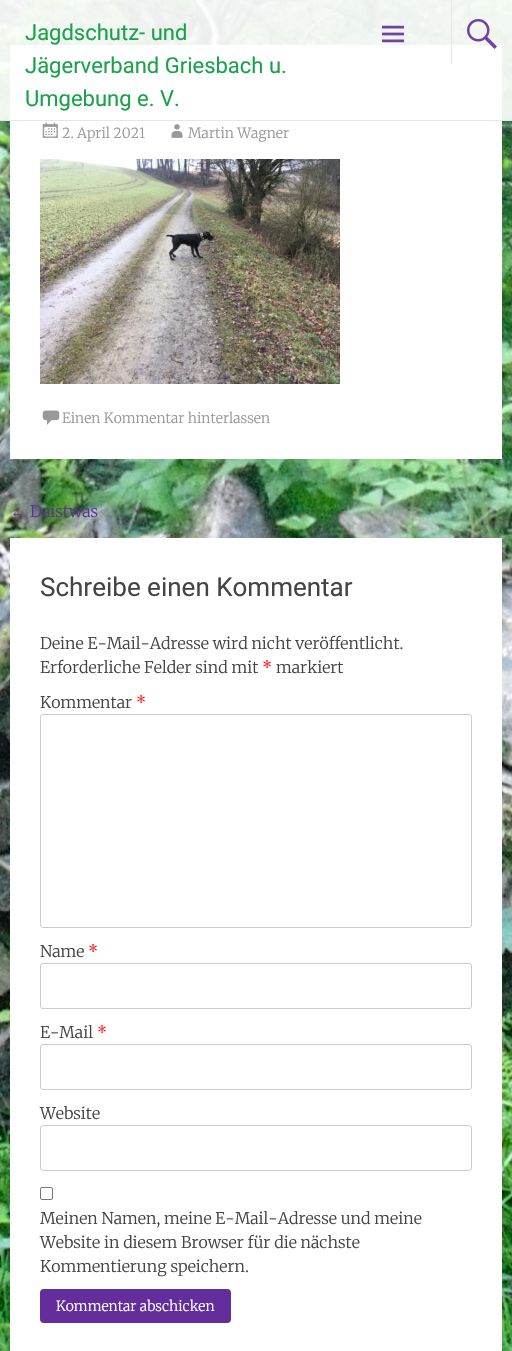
#include "include/core/SkBlurTypes.h"
#include "include/core/SkCanvas.h"
#include "include/core/SkData.h"
#include "include/core/SkFont.h"
#include "include/core/SkFontMgr.h"
#include "include/core/SkImage.h"
#include "include/core/SkMaskFilter.h"
#include "include/core/SkPaint.h"
#include "include/core/SkPathBuilder.h"
#include "include/core/SkTextBlob.h"
#include "include/effects/SkDashPathEffect.h"
#include "include/effects/SkGradientShader.h"
#include "include/utils/SkParsePath.h"

extern sk_sp<SkFontMgr> fontMgr;

void draw(SkCanvas* canvas) {
  SkPaint p;
  p.setAntiAlias(true);
  canvas->clear(SK_ColorWHITE);
  canvas->drawImageRect(SkImages::DeferredFromEncodedData(SkData::MakeFromFileName("images/3.png")), SkRect::MakeLTRB(0, 0, 512, 1351), SkSamplingOptions());
  p.setColor(SK_ColorWHITE);
  canvas->drawRect(SkRect::MakeLTRB(10, 45, 502, 459), p);
  p.setColor(SkColorSetARGB(230, 255, 255, 255));
  canvas->drawRect(SkRect::MakeLTRB(0, 0, 512, 121), p);
  p.setColor(SkColorSetARGB(230, 225, 228, 230));
  canvas->drawRect(SkRect::MakeLTRB(0, 120, 512, 121), p);
  canvas->drawImageRect(SkImages::DeferredFromEncodedData(SkData::MakeFromFileName("images/1.png")), SkRect::MakeLTRB(382, 25, 404, 43), SkSamplingOptions());
  canvas->drawRect(SkRect::MakeLTRB(451, 0, 452, 64), p);
  canvas->drawImageRect(SkImages::DeferredFromEncodedData(SkData::MakeFromFileName("images/2.png")), SkRect::MakeLTRB(467, 19, 497, 49), SkSamplingOptions());
  canvas->drawImageRect(SkImages::DeferredFromEncodedData(SkData::MakeFromFileName("images/4.png")), SkRect::MakeLTRB(42, 122, 58, 138), SkSamplingOptions());
  canvas->drawImageRect(SkImages::DeferredFromEncodedData(SkData::MakeFromFileName("images/5.png")), SkRect::MakeLTRB(171, 124, 183, 138), SkSamplingOptions());
  canvas->drawImageRect(SkImages::DeferredFromEncodedData(SkData::MakeFromFileName("images/6.png")), SkRect::MakeLTRB(40, 159, 340, 384), SkSamplingOptions());
  canvas->drawImageRect(SkImages::DeferredFromEncodedData(SkData::MakeFromFileName("images/7.png")), SkRect::MakeLTRB(42, 410, 60, 425), SkSamplingOptions());
  p.setColor(SK_ColorWHITE);
  canvas->drawRect(SkRect::MakeLTRB(10, 538, 502, 1351), p);
  p.setStyle(SkPaint::kStroke_Style);
  p.setStrokeWidth(1);
  p.setColor(SkColorSetRGB(204, 204, 204));
  canvas->drawRoundRect(SkRect::MakeLTRB(40.5f, 714.5f, 471.5f, 927.5f), 2.5f, 2.5f, p);
  canvas->drawRoundRect(SkRect::MakeLTRB(40.5f, 963.5f, 471.5f, 1008.5f), 2.5f, 2.5f, p);
  canvas->drawRoundRect(SkRect::MakeLTRB(40.5f, 1044.5f, 471.5f, 1089.5f), 2.5f, 2.5f, p);
  canvas->drawRoundRect(SkRect::MakeLTRB(40.5f, 1125.5f, 471.5f, 1170.5f), 2.5f, 2.5f, p);
  p.setColor(SkColorSetRGB(118, 118, 118));
  canvas->drawRoundRect(SkRect::MakeLTRB(40.5f, 1187.5f, 52.5f, 1199.5f), 1.5f, 1.5f, p);
  p.setStyle(SkPaint::kFill_Style);
  p.setColor(SkColorSetRGB(99, 46, 155));
  canvas->drawRoundRect(SkRect::MakeLTRB(40, 1289, 231, 1323), 4, 4, p);
  SkFont font1(fontMgr->matchFamilyStyle("Roboto", SkFontStyle::Normal()), 22);
  font1.setSubpixel(true);
  p.setColor(SkColorSetRGB(24, 162, 74));
  canvas->drawString("Jagdschutz- und", 25, 40, font1, p);
  canvas->drawString("Jägerverband Griesbach u.", 25, 73, font1, p);
  canvas->drawString("Umgebung e. V.", 25, 106, font1, p);
  SkFont font2(fontMgr->matchFamilyStyle("Merriweather", SkFontStyle(300, SkFontStyle::kNormal_Width, SkFontStyle::kUpright_Slant)), 14);
  font2.setSubpixel(true);
  p.setColor(SkColorSetRGB(153, 153, 153));
  canvas->drawString("2. April 2021", 62, 138, font2, p);
  canvas->drawString("Martin Wagner", 188, 138, font2, p);
  canvas->drawString("Einen Kommentar hinterlassen", 62, 423, font2, p);
  SkFont font3(fontMgr->matchFamilyStyle("Liberation Serif", SkFontStyle::Normal()), 16);
  font3.setSubpixel(true);
  p.setColor(SkColorSetRGB(99, 46, 155));
  canvas->drawString("←", 10, 517, font3, p);
  SkFont font4(fontMgr->matchFamilyStyle("Merriweather", SkFontStyle(300, SkFontStyle::kNormal_Width, SkFontStyle::kUpright_Slant)), 16);
  font4.setSubpixel(true);
  canvas->drawString("Daistwas", 30, 517, font4, p);
  SkFont font5(fontMgr->matchFamilyStyle("Roboto", SkFontStyle::Normal()), 26);
  font5.setSubpixel(true);
  p.setColor(SkColorSetRGB(68, 68, 68));
  canvas->drawString("Schreibe einen Kommentar", 40, 596, font5, p);
  canvas->drawString("Deine E-Mail-Adresse wird nicht veröffentlicht.", 40, 649, font4, p);
  canvas->drawString("Erforderliche Felder sind mit", 40, 673, font4, p);
  p.setColor(SkColorSetRGB(255, 0, 0));
  canvas->drawString("*", 262, 673, font4, p);
  p.setColor(SkColorSetRGB(68, 68, 68));
  canvas->drawString("markiert", 276, 673, font4, p);
  canvas->drawString("Kommentar", 40, 708, font4, p);
  p.setColor(SkColorSetRGB(255, 0, 0));
  canvas->drawString("*", 136, 708, font4, p);
  p.setColor(SkColorSetRGB(68, 68, 68));
  canvas->drawString("Name", 40, 957, font4, p);
  p.setColor(SkColorSetRGB(255, 0, 0));
  canvas->drawString("*", 88, 957, font4, p);
  p.setColor(SkColorSetRGB(68, 68, 68));
  canvas->drawString("E-Mail", 40, 1038, font4, p);
  p.setColor(SkColorSetRGB(255, 0, 0));
  canvas->drawString("*", 97, 1038, font4, p);
  p.setColor(SkColorSetRGB(68, 68, 68));
  canvas->drawString("Website", 40, 1119, font4, p);
  canvas->drawString("Meinen Namen, meine E-Mail-Adresse und meine", 40, 1224, font4, p);
  canvas->drawString("Website in diesem Browser für die nächste", 40, 1248, font4, p);
  canvas->drawString("Kommentierung speichern.", 40, 1272, font4, p);
  p.setColor(SK_ColorWHITE);
  canvas->drawString("Kommentar abschicken", 56, 1311, font2, p);
}
